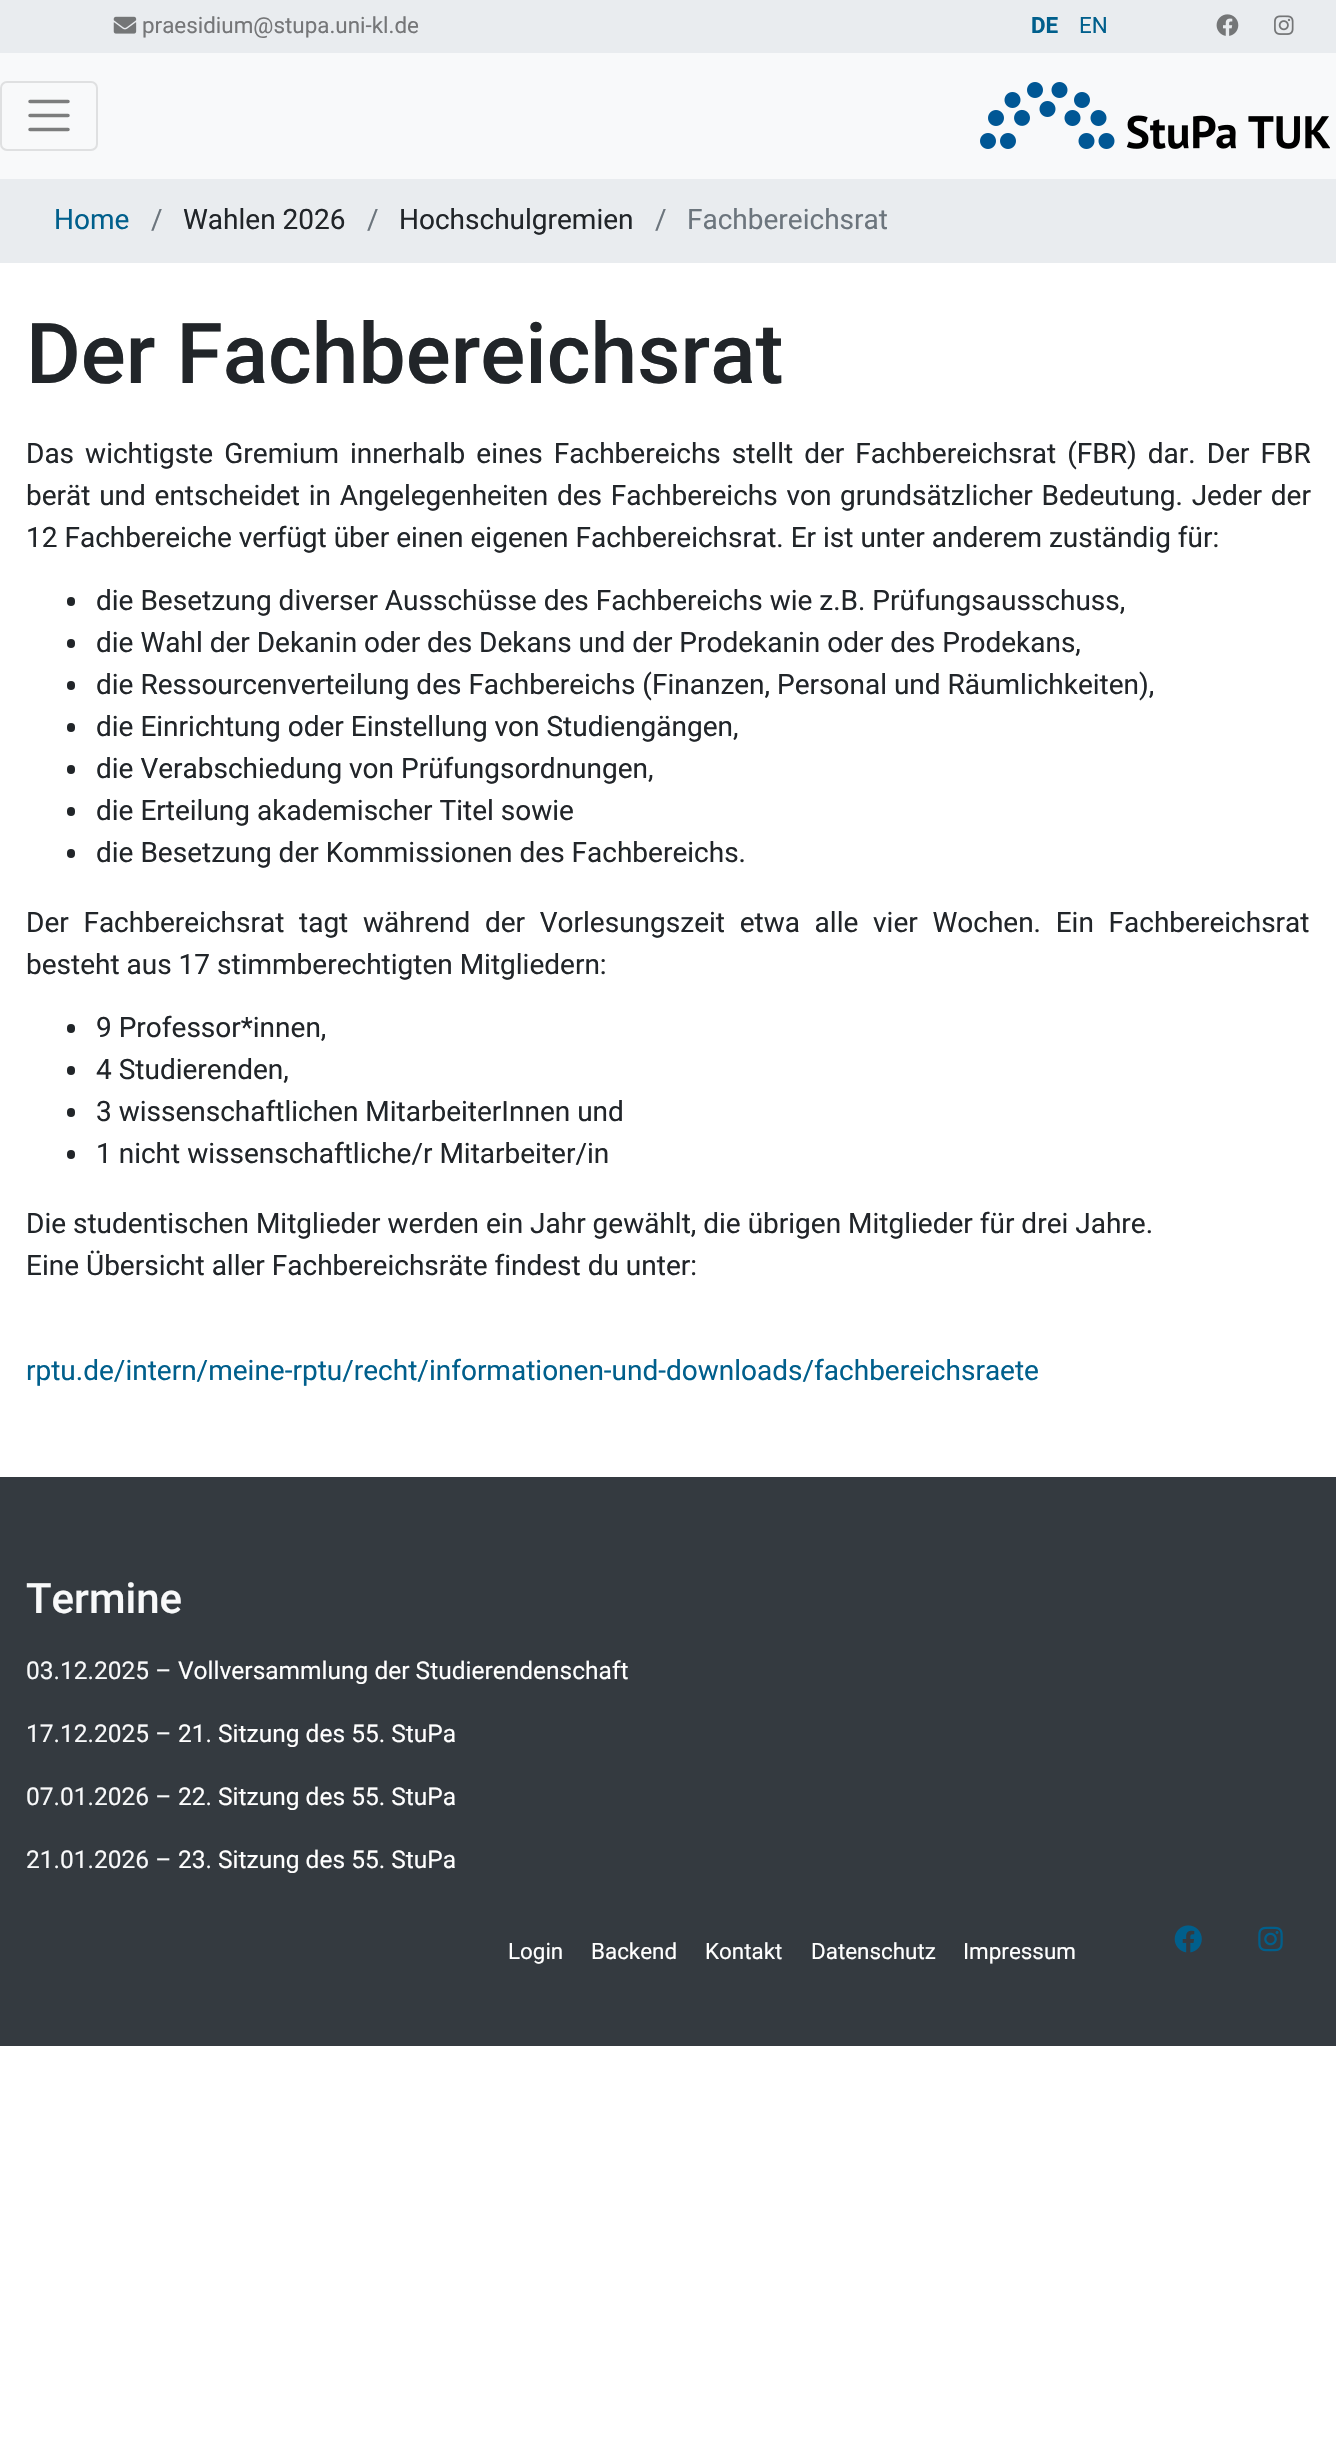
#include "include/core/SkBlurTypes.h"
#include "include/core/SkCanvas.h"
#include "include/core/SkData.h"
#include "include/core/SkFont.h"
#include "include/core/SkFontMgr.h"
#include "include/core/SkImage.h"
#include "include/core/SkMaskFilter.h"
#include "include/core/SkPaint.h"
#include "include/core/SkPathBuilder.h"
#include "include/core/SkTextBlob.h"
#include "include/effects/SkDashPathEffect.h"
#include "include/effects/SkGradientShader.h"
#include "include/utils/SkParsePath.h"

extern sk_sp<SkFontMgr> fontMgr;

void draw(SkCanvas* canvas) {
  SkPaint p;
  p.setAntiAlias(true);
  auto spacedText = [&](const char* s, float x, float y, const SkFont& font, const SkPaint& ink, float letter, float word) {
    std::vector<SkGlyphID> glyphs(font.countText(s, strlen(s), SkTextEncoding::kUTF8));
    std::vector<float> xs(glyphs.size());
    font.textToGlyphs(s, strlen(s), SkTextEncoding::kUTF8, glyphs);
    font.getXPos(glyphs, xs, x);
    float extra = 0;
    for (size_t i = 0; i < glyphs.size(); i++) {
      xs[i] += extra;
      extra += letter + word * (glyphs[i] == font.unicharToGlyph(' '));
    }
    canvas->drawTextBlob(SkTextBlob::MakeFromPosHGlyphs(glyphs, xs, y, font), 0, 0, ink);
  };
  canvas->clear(SK_ColorWHITE);
  p.setColor(SkColorSetRGB(248, 249, 250));
  canvas->drawRect(SkRect::MakeLTRB(0, 53, 1336, 179), p);
  p.setColor(SkColorSetRGB(233, 236, 239));
  canvas->drawRect(SkRect::MakeLTRB(0, 0, 1336, 53), p);
  canvas->drawImageRect(SkImages::DeferredFromEncodedData(SkData::MakeFromFileName("images/1.png")), SkRect::MakeLTRB(113, 16, 137, 34), SkSamplingOptions());
  canvas->drawImageRect(SkImages::DeferredFromEncodedData(SkData::MakeFromFileName("images/2.png")), SkRect::MakeLTRB(1216, 14, 1239, 36), SkSamplingOptions());
  canvas->drawImageRect(SkImages::DeferredFromEncodedData(SkData::MakeFromFileName("images/3.png")), SkRect::MakeLTRB(1274, 15, 1294, 35), SkSamplingOptions());
  p.setStyle(SkPaint::kStroke_Style);
  p.setStrokeWidth(2);
  p.setColor(SkColorSetRGB(223, 224, 225));
  canvas->drawRoundRect(SkRect::MakeLTRB(1, 82, 97, 150), 6, 6, p);
  p.setStrokeWidth(3.5f);
  p.setStrokeCap(SkPaint::kRound_Cap);
  p.setColor(SkColorSetRGB(124, 125, 125));
  canvas->drawPath(SkPathBuilder().moveTo(30, 101.5f).lineTo(68, 101.5f).moveTo(30, 115.5f).lineTo(68, 115.5f).moveTo(30, 129.5f).lineTo(68, 129.5f).detach(), p);
  canvas->drawImageRect(SkImages::DeferredFromEncodedData(SkData::MakeFromFileName("images/4.png")), SkRect::MakeLTRB(980, 82, 1330, 149), SkSamplingOptions());
  p.setStyle(SkPaint::kFill_Style);
  p.setColor(SkColorSetRGB(233, 236, 239));
  canvas->drawRect(SkRect::MakeLTRB(0, 179, 1336, 263), p);
  p.setColor(SkColorSetRGB(33, 37, 41));
  canvas->drawRoundRect(SkRect::MakeLTRB(67, 597, 75, 606), 4, 4, p);
  canvas->drawRoundRect(SkRect::MakeLTRB(67, 639, 75, 648), 4, 4, p);
  canvas->drawRoundRect(SkRect::MakeLTRB(67, 681, 75, 690), 4, 4, p);
  canvas->drawRoundRect(SkRect::MakeLTRB(67, 723, 75, 732), 4, 4, p);
  canvas->drawRoundRect(SkRect::MakeLTRB(67, 765, 75, 774), 4, 4, p);
  canvas->drawRoundRect(SkRect::MakeLTRB(67, 807, 75, 816), 4, 4, p);
  canvas->drawRoundRect(SkRect::MakeLTRB(67, 849, 75, 858), 4, 4, p);
  canvas->drawRoundRect(SkRect::MakeLTRB(67, 1024, 75, 1033), 4, 4, p);
  canvas->drawRoundRect(SkRect::MakeLTRB(67, 1066, 75, 1075), 4, 4, p);
  canvas->drawRoundRect(SkRect::MakeLTRB(67, 1108, 75, 1117), 4, 4, p);
  canvas->drawRoundRect(SkRect::MakeLTRB(67, 1150, 75, 1159), 4, 4, p);
  p.setColor(SkColorSetRGB(52, 58, 64));
  canvas->drawRect(SkRect::MakeLTRB(0, 1477, 1336, 2046), p);
  canvas->drawImageRect(SkImages::DeferredFromEncodedData(SkData::MakeFromFileName("images/5.png")), SkRect::MakeLTRB(1174, 1925, 1202, 1953), SkSamplingOptions());
  canvas->drawImageRect(SkImages::DeferredFromEncodedData(SkData::MakeFromFileName("images/6.png")), SkRect::MakeLTRB(1258, 1926, 1283, 1952), SkSamplingOptions());
  SkFont font1(fontMgr->matchFamilyStyle("Roboto", SkFontStyle::Normal()), 22.4f);
  font1.setSubpixel(true);
  p.setColor(SkColorSetRGB(117, 118, 120));
  canvas->drawString("praesidium@stupa.uni-kl.de", 142, 33, font1, p);
  SkFont font2(fontMgr->matchFamilyStyle("Roboto", SkFontStyle::Bold()), 22.4f);
  font2.setSubpixel(true);
  p.setColor(SkColorSetRGB(0, 95, 140));
  canvas->drawString("DE", 1031, 33, font2, p);
  canvas->drawString("EN", 1079, 33, font1, p);
  SkFont font3(fontMgr->matchFamilyStyle("Roboto", SkFontStyle::Normal()), 28);
  font3.setSubpixel(true);
  canvas->drawString("Home", 54, 229, font3, p);
  p.setColor(SkColorSetRGB(108, 117, 125));
  canvas->drawString("/", 151, 229, font3, p);
  p.setColor(SkColorSetRGB(33, 37, 41));
  canvas->drawString("Wahlen 2026", 183, 229, font3, p);
  p.setColor(SkColorSetRGB(108, 117, 125));
  canvas->drawString("/", 367, 229, font3, p);
  p.setColor(SkColorSetRGB(33, 37, 41));
  canvas->drawString("Hochschulgremien", 399, 229, font3, p);
  p.setColor(SkColorSetRGB(108, 117, 125));
  canvas->drawString("/", 655, 229, font3, p);
  canvas->drawString("Fachbereichsrat", 687, 229, font3, p);
  SkFont font4(fontMgr->matchFamilyStyle("Roboto", SkFontStyle(500, SkFontStyle::kNormal_Width, SkFontStyle::kUpright_Slant)), 84);
  font4.setSubpixel(true);
  p.setColor(SkColorSetRGB(33, 37, 41));
  canvas->drawString("Der Fachbereichsrat", 26, 383, font4, p);
  spacedText("Das wichtigste Gremium innerhalb eines Fachbereichs stellt der Fachbereichsrat (FBR) dar. Der FBR", 26, 463, font3, p, 0, 4.1f);
  spacedText("berät und entscheidet in Angelegenheiten des Fachbereichs von grundsätzlicher Bedeutung. Jeder der", 26, 505, font3, p, 0, 1.75f);
  canvas->drawString("12 Fachbereiche verfügt über einen eigenen Fachbereichsrat. Er ist unter anderem zuständig für:", 26, 547, font3, p);
  canvas->drawString("die Besetzung diverser Ausschüsse des Fachbereichs wie z.B. Prüfungsausschuss,", 96, 610, font3, p);
  canvas->drawString("die Wahl der Dekanin oder des Dekans und der Prodekanin oder des Prodekans,", 96, 652, font3, p);
  canvas->drawString("die Ressourcenverteilung des Fachbereichs (Finanzen, Personal und Räumlichkeiten),", 96, 694, font3, p);
  canvas->drawString("die Einrichtung oder Einstellung von Studiengängen,", 96, 736, font3, p);
  canvas->drawString("die Verabschiedung von Prüfungsordnungen,", 96, 778, font3, p);
  canvas->drawString("die Erteilung akademischer Titel sowie", 96, 820, font3, p);
  canvas->drawString("die Besetzung der Kommissionen des Fachbereichs.", 96, 862, font3, p);
  spacedText("Der Fachbereichsrat tagt während der Vorlesungszeit etwa alle vier Wochen. Ein Fachbereichsrat", 26, 932, font3, p, 0, 7.75f);
  canvas->drawString("besteht aus 17 stimmberechtigten Mitgliedern:", 26, 974, font3, p);
  canvas->drawString("9 Professor*innen,", 96, 1037, font3, p);
  canvas->drawString("4 Studierenden,", 96, 1079, font3, p);
  canvas->drawString("3 wissenschaftlichen MitarbeiterInnen und", 96, 1121, font3, p);
  canvas->drawString("1 nicht wissenschaftliche/r Mitarbeiter/in", 96, 1163, font3, p);
  canvas->drawString("Die studentischen Mitglieder werden ein Jahr gewählt, die übrigen Mitglieder für drei Jahre.", 26, 1233, font3, p);
  canvas->drawString("Eine Übersicht aller Fachbereichsräte findest du unter:", 26, 1275, font3, p);
  p.setColor(SkColorSetRGB(0, 95, 140));
  canvas->drawString("rptu.de/intern/meine-rptu/recht/informationen-und-downloads/fachbereichsraete", 26, 1380, font3, p);
  SkFont font5(fontMgr->matchFamilyStyle("Roboto", SkFontStyle(500, SkFontStyle::kNormal_Width, SkFontStyle::kUpright_Slant)), 42);
  font5.setSubpixel(true);
  p.setColor(SkColorSetRGB(248, 249, 250));
  canvas->drawString("Termine", 26, 1613, font5, p);
  SkFont font6(fontMgr->matchFamilyStyle("Roboto", SkFontStyle::Normal()), 24.5f);
  font6.setSubpixel(true);
  canvas->drawString("03.12.2025 –", 26, 1679, font6, p);
  p.setColor(SK_ColorWHITE);
  canvas->drawString("Vollversammlung der Studierendenschaft", 178, 1679, font6, p);
  p.setColor(SkColorSetRGB(248, 249, 250));
  canvas->drawString("17.12.2025 –", 26, 1742, font6, p);
  p.setColor(SK_ColorWHITE);
  canvas->drawString("21. Sitzung des 55. StuPa", 178, 1742, font6, p);
  p.setColor(SkColorSetRGB(248, 249, 250));
  canvas->drawString("07.01.2026 –", 26, 1805, font6, p);
  p.setColor(SK_ColorWHITE);
  canvas->drawString("22. Sitzung des 55. StuPa", 178, 1805, font6, p);
  p.setColor(SkColorSetRGB(248, 249, 250));
  canvas->drawString("21.01.2026 –", 26, 1868, font6, p);
  p.setColor(SK_ColorWHITE);
  canvas->drawString("23. Sitzung des 55. StuPa", 178, 1868, font6, p);
  canvas->drawString("Login", 508, 1959, font1, p);
  canvas->drawString("Backend", 591, 1959, font1, p);
  canvas->drawString("Kontakt", 705, 1959, font1, p);
  canvas->drawString("Datenschutz", 811, 1959, font1, p);
  canvas->drawString("Impressum", 963, 1959, font1, p);
}
